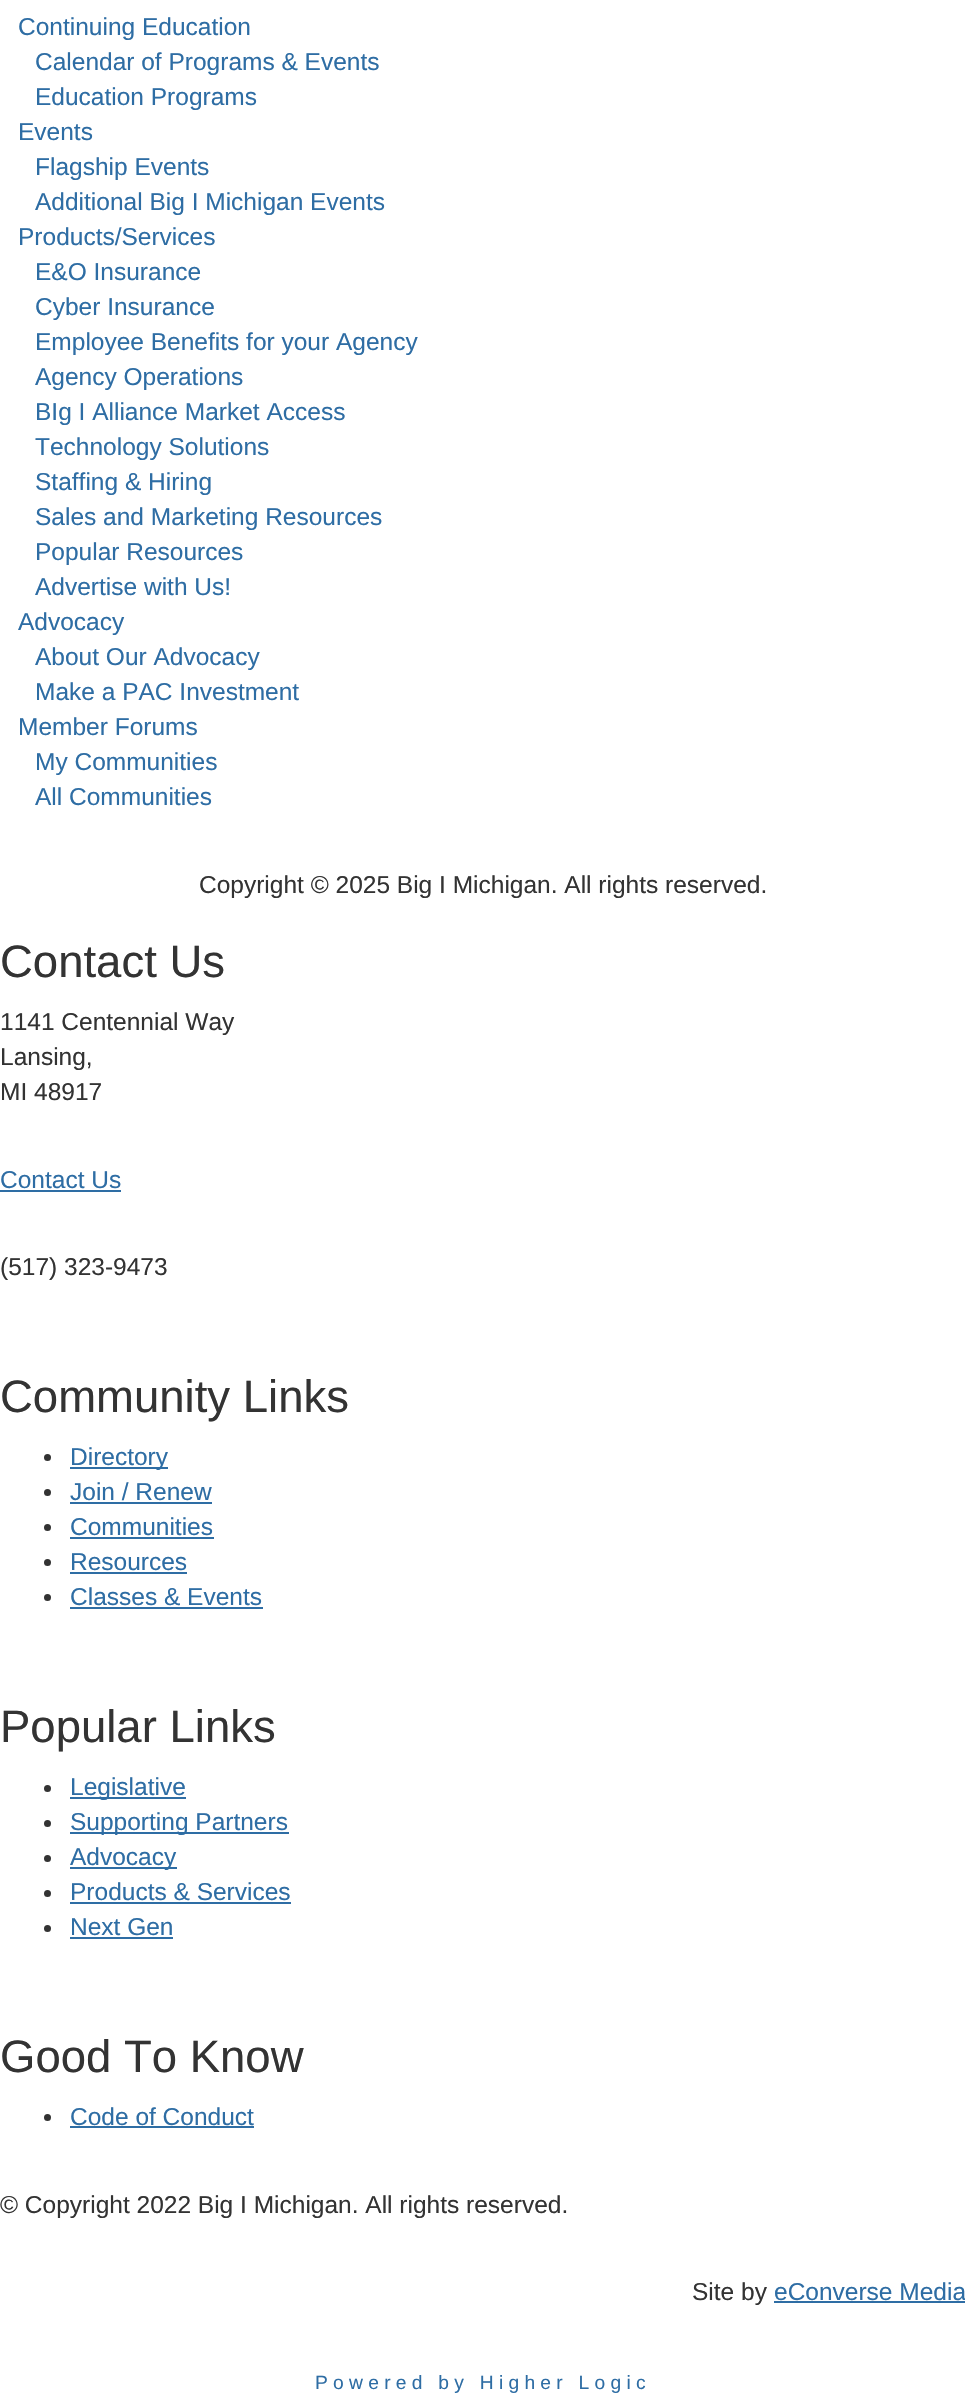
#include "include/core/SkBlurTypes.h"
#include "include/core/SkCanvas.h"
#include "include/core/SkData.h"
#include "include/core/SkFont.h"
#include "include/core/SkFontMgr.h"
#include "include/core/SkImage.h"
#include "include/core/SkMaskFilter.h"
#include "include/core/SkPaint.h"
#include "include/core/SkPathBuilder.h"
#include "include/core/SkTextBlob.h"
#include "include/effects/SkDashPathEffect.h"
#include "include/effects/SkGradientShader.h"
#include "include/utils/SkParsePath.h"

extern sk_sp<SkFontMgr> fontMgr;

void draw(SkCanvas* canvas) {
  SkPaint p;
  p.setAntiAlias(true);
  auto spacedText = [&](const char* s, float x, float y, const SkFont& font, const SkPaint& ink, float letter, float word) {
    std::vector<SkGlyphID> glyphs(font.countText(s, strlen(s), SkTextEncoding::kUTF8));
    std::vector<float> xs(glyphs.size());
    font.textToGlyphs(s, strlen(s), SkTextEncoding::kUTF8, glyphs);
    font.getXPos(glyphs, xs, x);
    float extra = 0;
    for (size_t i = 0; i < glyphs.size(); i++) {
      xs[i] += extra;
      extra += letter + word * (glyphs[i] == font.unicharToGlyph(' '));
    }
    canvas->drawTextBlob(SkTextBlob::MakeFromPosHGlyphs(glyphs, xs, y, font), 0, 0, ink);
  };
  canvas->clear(SK_ColorWHITE);
  p.setColor(SkColorSetRGB(46, 109, 164));
  canvas->drawRect(SkRect::MakeLTRB(0, 1190, 121, 1192), p);
  p.setColor(SkColorSetRGB(51, 51, 51));
  canvas->drawCircle(47.5f, 1457.5f, 3.5f, p);
  p.setColor(SkColorSetRGB(46, 109, 164));
  canvas->drawRect(SkRect::MakeLTRB(70, 1467, 168, 1469), p);
  p.setColor(SkColorSetRGB(51, 51, 51));
  canvas->drawCircle(47.5f, 1492.5f, 3.5f, p);
  p.setColor(SkColorSetRGB(46, 109, 164));
  canvas->drawRect(SkRect::MakeLTRB(70, 1502, 212, 1504), p);
  p.setColor(SkColorSetRGB(51, 51, 51));
  canvas->drawCircle(47.5f, 1527.5f, 3.5f, p);
  p.setColor(SkColorSetRGB(46, 109, 164));
  canvas->drawRect(SkRect::MakeLTRB(70, 1537, 214, 1539), p);
  p.setColor(SkColorSetRGB(51, 51, 51));
  canvas->drawCircle(47.5f, 1562.5f, 3.5f, p);
  p.setColor(SkColorSetRGB(46, 109, 164));
  canvas->drawRect(SkRect::MakeLTRB(70, 1572, 187, 1574), p);
  p.setColor(SkColorSetRGB(51, 51, 51));
  canvas->drawCircle(47.5f, 1597.5f, 3.5f, p);
  p.setColor(SkColorSetRGB(46, 109, 164));
  canvas->drawRect(SkRect::MakeLTRB(70, 1607, 263, 1609), p);
  p.setColor(SkColorSetRGB(51, 51, 51));
  canvas->drawCircle(47.5f, 1788.5f, 3.5f, p);
  p.setColor(SkColorSetRGB(46, 109, 164));
  canvas->drawRect(SkRect::MakeLTRB(70, 1797, 186, 1799), p);
  p.setColor(SkColorSetRGB(51, 51, 51));
  canvas->drawCircle(47.5f, 1823.5f, 3.5f, p);
  p.setColor(SkColorSetRGB(46, 109, 164));
  canvas->drawRect(SkRect::MakeLTRB(70, 1832, 289, 1834), p);
  p.setColor(SkColorSetRGB(51, 51, 51));
  canvas->drawCircle(47.5f, 1858.5f, 3.5f, p);
  p.setColor(SkColorSetRGB(46, 109, 164));
  canvas->drawRect(SkRect::MakeLTRB(70, 1867, 177, 1869), p);
  p.setColor(SkColorSetRGB(51, 51, 51));
  canvas->drawCircle(47.5f, 1893.5f, 3.5f, p);
  p.setColor(SkColorSetRGB(46, 109, 164));
  canvas->drawRect(SkRect::MakeLTRB(70, 1902, 291, 1904), p);
  p.setColor(SkColorSetRGB(51, 51, 51));
  canvas->drawCircle(47.5f, 1928.5f, 3.5f, p);
  p.setColor(SkColorSetRGB(46, 109, 164));
  canvas->drawRect(SkRect::MakeLTRB(70, 1937, 173, 1939), p);
  p.setColor(SkColorSetRGB(51, 51, 51));
  canvas->drawCircle(47.5f, 2117.5f, 3.5f, p);
  p.setColor(SkColorSetRGB(46, 109, 164));
  canvas->drawRect(SkRect::MakeLTRB(70, 2126, 254, 2128), p);
  canvas->drawRect(SkRect::MakeLTRB(774, 2301, 965, 2303), p);
  SkFont font1(fontMgr->matchFamilyStyle("Liberation Sans", SkFontStyle::Normal()), 24.5f);
  font1.setSubpixel(true);
  canvas->drawString("Continuing Education", 18, 35, font1, p);
  canvas->drawString("Calendar of Programs & Events", 35, 70, font1, p);
  canvas->drawString("Education Programs", 35, 105, font1, p);
  canvas->drawString("Events", 18, 140, font1, p);
  canvas->drawString("Flagship Events", 35, 175, font1, p);
  canvas->drawString("Additional Big I Michigan Events", 35, 210, font1, p);
  canvas->drawString("Products/Services", 18, 245, font1, p);
  canvas->drawString("E&O Insurance", 35, 280, font1, p);
  canvas->drawString("Cyber Insurance", 35, 315, font1, p);
  canvas->drawString("Employee Benefits for your Agency", 35, 350, font1, p);
  canvas->drawString("Agency Operations", 35, 385, font1, p);
  canvas->drawString("BIg I Alliance Market Access", 35, 420, font1, p);
  canvas->drawString("Technology Solutions", 35, 455, font1, p);
  canvas->drawString("Staffing & Hiring", 35, 490, font1, p);
  canvas->drawString("Sales and Marketing Resources", 35, 525, font1, p);
  canvas->drawString("Popular Resources", 35, 560, font1, p);
  canvas->drawString("Advertise with Us!", 35, 595, font1, p);
  canvas->drawString("Advocacy", 18, 630, font1, p);
  canvas->drawString("About Our Advocacy", 35, 665, font1, p);
  canvas->drawString("Make a PAC Investment", 35, 700, font1, p);
  canvas->drawString("Member Forums", 18, 735, font1, p);
  canvas->drawString("My Communities", 35, 770, font1, p);
  canvas->drawString("All Communities", 35, 805, font1, p);
  p.setColor(SkColorSetRGB(51, 51, 51));
  canvas->drawString("Copyright © 2025 Big I Michigan. All rights reserved.", 199, 893, font1, p);
  SkFont font2(fontMgr->matchFamilyStyle("Liberation Sans", SkFontStyle::Normal()), 45.5f);
  font2.setSubpixel(true);
  canvas->drawString("Contact Us", 0, 977, font2, p);
  canvas->drawString("1141 Centennial Way", 0, 1030, font1, p);
  canvas->drawString("Lansing,", 0, 1065, font1, p);
  canvas->drawString("MI 48917", 0, 1100, font1, p);
  p.setColor(SkColorSetRGB(46, 109, 164));
  canvas->drawString("Contact Us", 0, 1188, font1, p);
  p.setColor(SkColorSetRGB(51, 51, 51));
  canvas->drawString("(517) 323-9473", 0, 1275, font1, p);
  canvas->drawString("Community Links", 0, 1412, font2, p);
  p.setColor(SkColorSetRGB(46, 109, 164));
  canvas->drawString("Directory", 70, 1465, font1, p);
  canvas->drawString("Join / Renew", 70, 1500, font1, p);
  canvas->drawString("Communities", 70, 1535, font1, p);
  canvas->drawString("Resources", 70, 1570, font1, p);
  canvas->drawString("Classes & Events", 70, 1605, font1, p);
  p.setColor(SkColorSetRGB(51, 51, 51));
  canvas->drawString("Popular Links", 0, 1742, font2, p);
  p.setColor(SkColorSetRGB(46, 109, 164));
  canvas->drawString("Legislative", 70, 1795, font1, p);
  canvas->drawString("Supporting Partners", 70, 1830, font1, p);
  canvas->drawString("Advocacy", 70, 1865, font1, p);
  canvas->drawString("Products & Services", 70, 1900, font1, p);
  canvas->drawString("Next Gen", 70, 1935, font1, p);
  p.setColor(SkColorSetRGB(51, 51, 51));
  canvas->drawString("Good To Know", 0, 2072, font2, p);
  p.setColor(SkColorSetRGB(46, 109, 164));
  canvas->drawString("Code of Conduct", 70, 2125, font1, p);
  p.setColor(SkColorSetRGB(51, 51, 51));
  canvas->drawString("© Copyright 2022 Big I Michigan. All rights reserved.", 0, 2213, font1, p);
  canvas->drawString("Site by", 692, 2300, font1, p);
  p.setColor(SkColorSetRGB(46, 109, 164));
  canvas->drawString("eConverse Media", 774, 2300, font1, p);
  SkFont font3(fontMgr->matchFamilyStyle("Liberation Sans", SkFontStyle::Normal()), 19.25f);
  font3.setSubpixel(true);
  spacedText("Powered by Higher Logic", 315, 2389, font3, p, 5.25f, 0);
}
